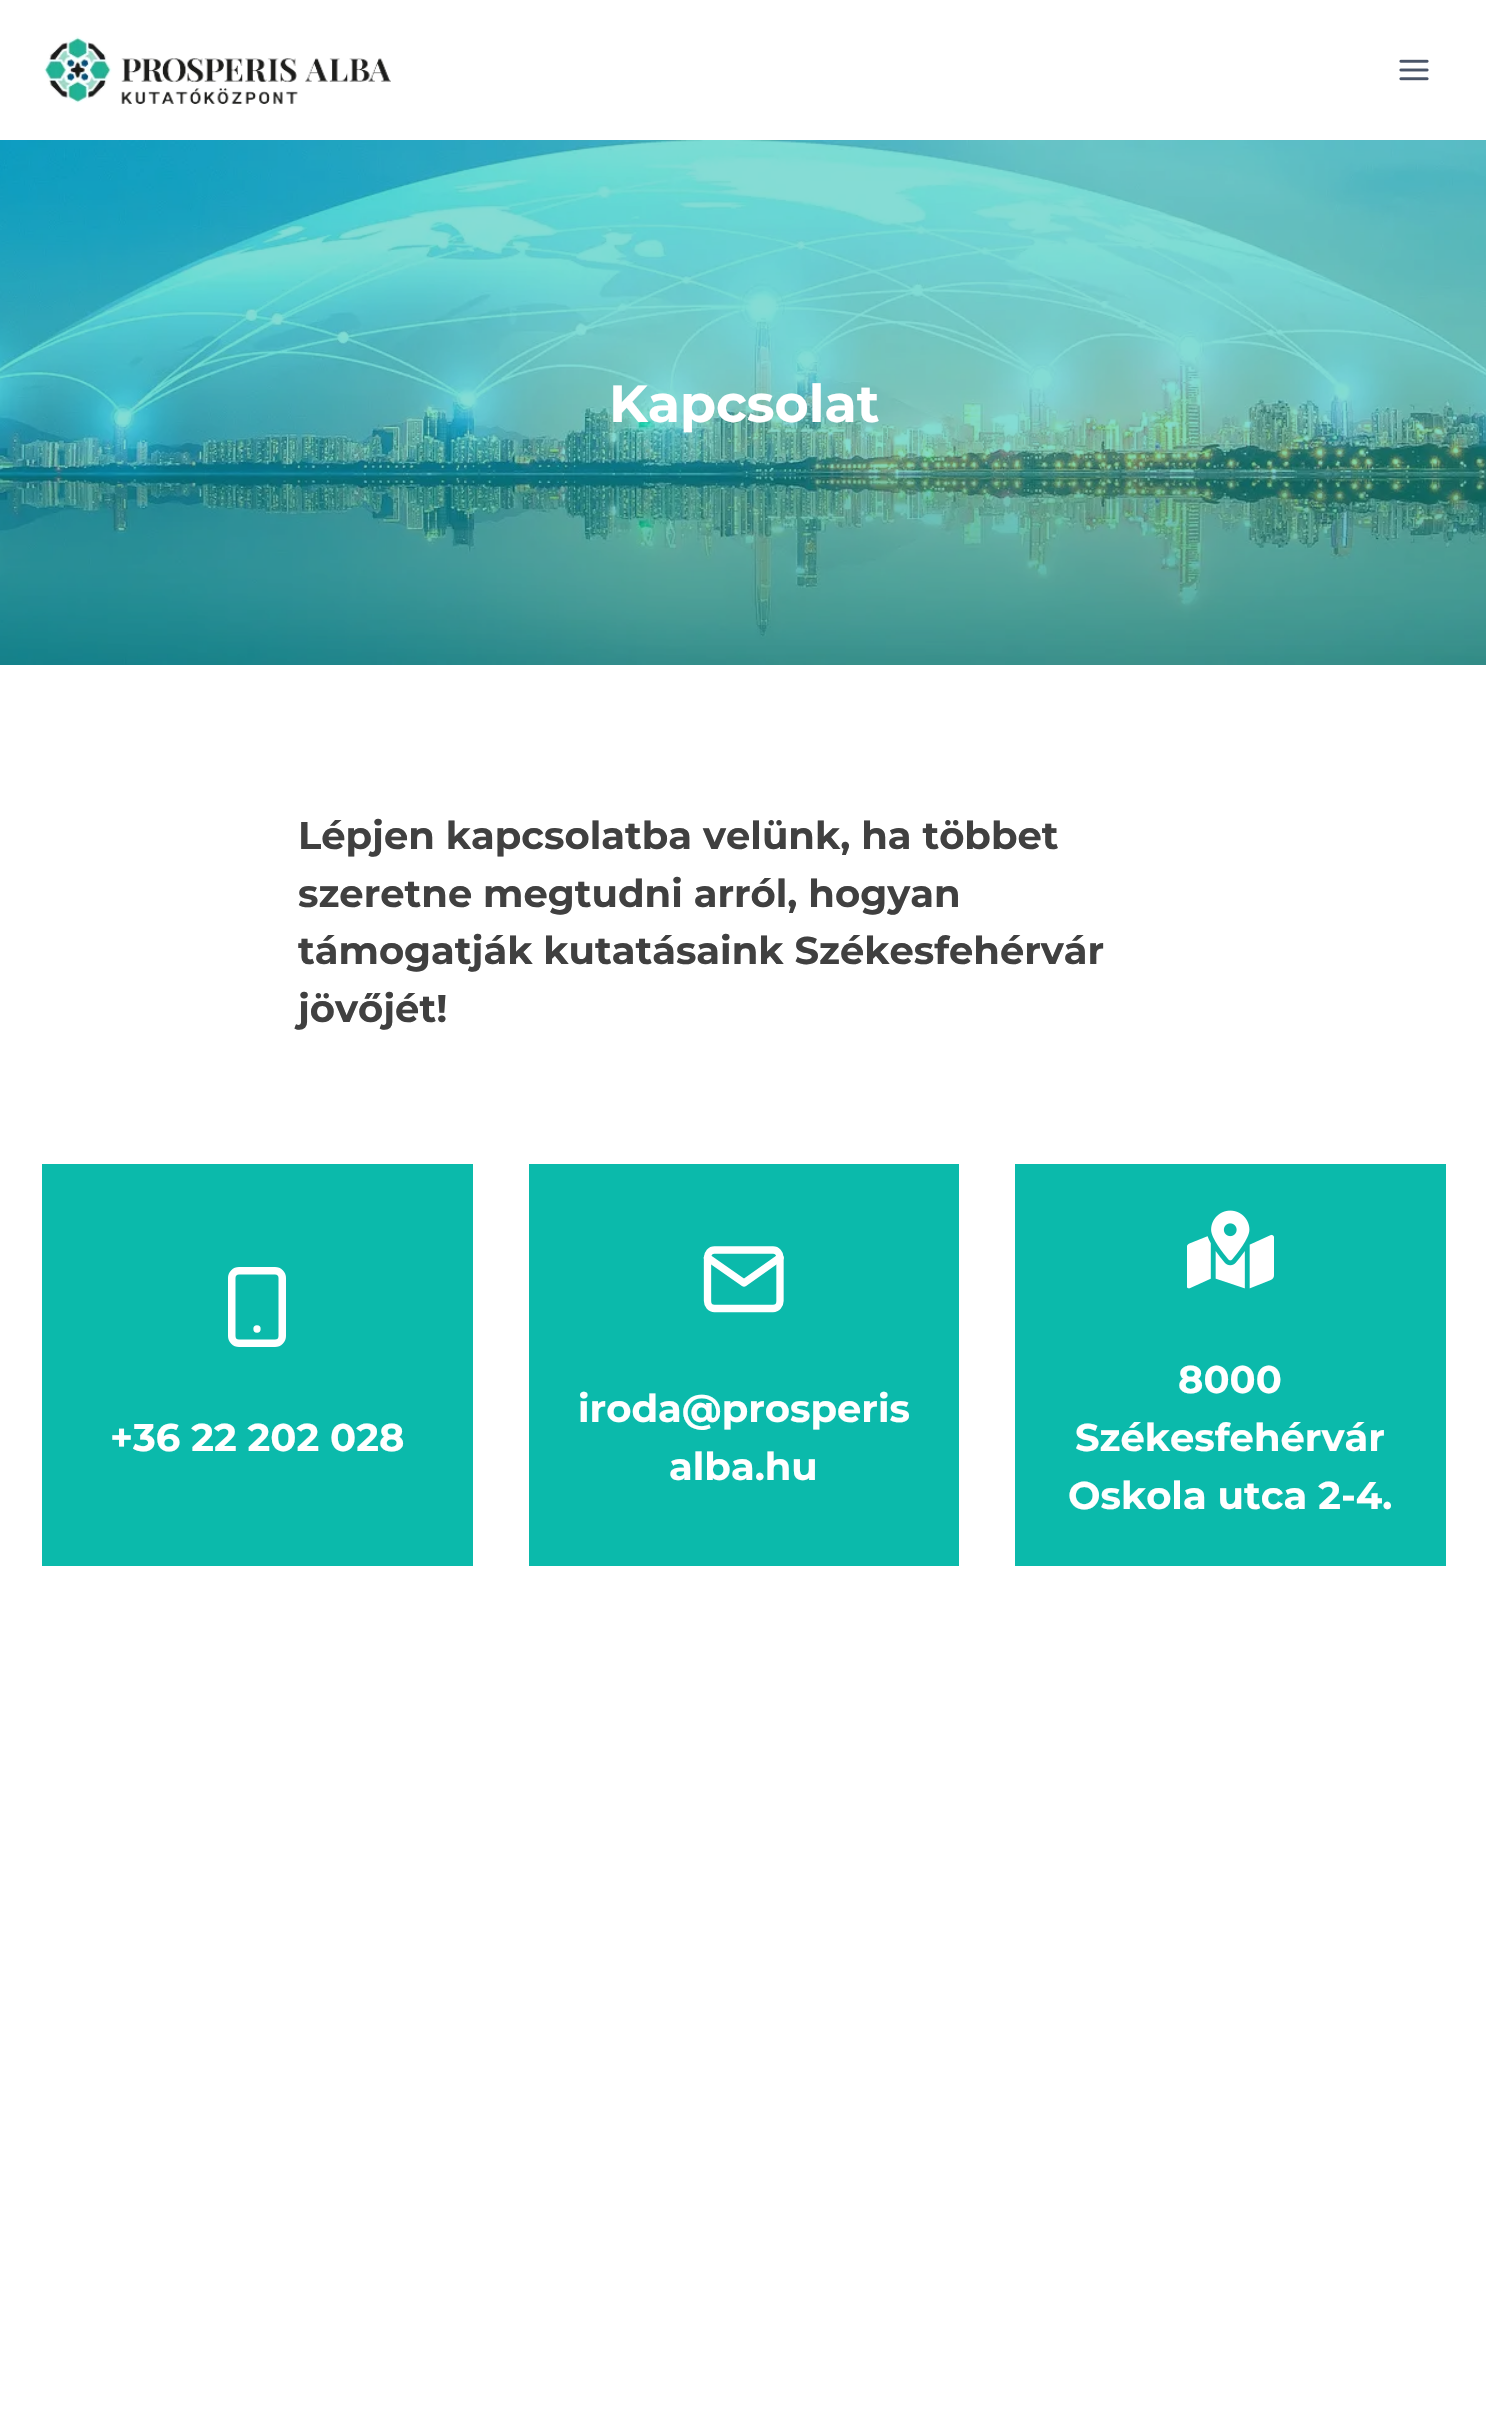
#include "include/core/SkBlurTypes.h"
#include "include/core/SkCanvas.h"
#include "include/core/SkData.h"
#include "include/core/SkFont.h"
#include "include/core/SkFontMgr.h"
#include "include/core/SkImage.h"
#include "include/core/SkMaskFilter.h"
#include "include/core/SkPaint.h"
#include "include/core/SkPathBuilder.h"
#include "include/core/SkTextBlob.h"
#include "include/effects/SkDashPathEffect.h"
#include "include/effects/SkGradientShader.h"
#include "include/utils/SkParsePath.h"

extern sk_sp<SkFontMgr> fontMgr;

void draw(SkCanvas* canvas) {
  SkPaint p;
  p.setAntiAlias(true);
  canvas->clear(SK_ColorWHITE);
  canvas->drawImageRect(SkImages::DeferredFromEncodedData(SkData::MakeFromFileName("images/1.png")), SkRect::MakeLTRB(44, 36, 391, 104), SkSamplingOptions());
  canvas->drawImageRect(SkImages::DeferredFromEncodedData(SkData::MakeFromFileName("images/2.png")), SkRect::MakeLTRB(1399, 59, 1429, 81), SkSamplingOptions());
  canvas->drawImageRect(SkImages::DeferredFromEncodedData(SkData::MakeFromFileName("images/3.png")), SkRect::MakeLTRB(0, 140, 1486, 665), SkSamplingOptions());
  p.setColor(SkColorSetRGB(11, 186, 171));
  canvas->drawRect(SkRect::MakeLTRB(42, 1164, 473, 1566), p);
  p.setStyle(SkPaint::kStroke_Style);
  p.setStrokeWidth(7.5f);
  p.setColor(SK_ColorWHITE);
  canvas->drawRoundRect(SkRect::MakeLTRB(231.75f, 1270.75f, 282.25f, 1343.25f), 7.25f, 7.25f, p);
  p.setStrokeWidth(7.3f);
  p.setStrokeCap(SkPaint::kRound_Cap);
  p.setStrokeJoin(SkPaint::kRound_Join);
  canvas->drawPath(SkPathBuilder().moveTo(257, 1329).lineTo(257, 1329).detach(), p);
  p.setStyle(SkPaint::kFill_Style);
  p.setColor(SkColorSetRGB(11, 186, 171));
  canvas->drawRect(SkRect::MakeLTRB(529, 1164, 959, 1566), p);
  p.setStyle(SkPaint::kStroke_Style);
  p.setColor(SK_ColorWHITE);
  canvas->drawPath(SkPathBuilder().moveTo(714.5f, 1250).lineTo(773, 1250).cubicTo(777, 1250, 780, 1253.5f, 780, 1257.5f).lineTo(780, 1301).cubicTo(780, 1305, 777, 1308.5f, 773, 1308.5f).lineTo(714.5f, 1308.5f).cubicTo(710.5f, 1308.5f, 707.5f, 1305, 707.5f, 1301).lineTo(707.5f, 1257.5f).cubicTo(707.5f, 1253.5f, 710.5f, 1250, 714.5f, 1250).close().detach(), p);
  canvas->drawPath(SkPathBuilder().moveTo(780, 1257.5f).lineTo(744, 1283).lineTo(707.5f, 1257.5f).detach(), p);
  p.setStyle(SkPaint::kFill_Style);
  p.setColor(SkColorSetRGB(11, 186, 171));
  canvas->drawRect(SkRect::MakeLTRB(1015, 1164, 1446, 1566), p);
  canvas->drawImageRect(SkImages::DeferredFromEncodedData(SkData::MakeFromFileName("images/4.png")), SkRect::MakeLTRB(1187, 1210, 1274, 1289), SkSamplingOptions());
  SkFont font1(fontMgr->matchFamilyStyle("Montserrat", SkFontStyle::Bold()), 52.25f);
  font1.setSubpixel(true);
  p.setColor(SK_ColorWHITE);
  canvas->drawString("Kapcsolat", 609, 422, font1, p);
  SkFont font2(fontMgr->matchFamilyStyle("Montserrat", SkFontStyle::Bold()), 38.5f);
  font2.setSubpixel(true);
  p.setColor(SkColorSetRGB(64, 64, 64));
  canvas->drawString("Lépjen kapcsolatba velünk, ha többet", 298, 849, font2, p);
  canvas->drawString("szeretne megtudni arról, hogyan", 298, 907, font2, p);
  canvas->drawString("támogatják kutatásaink Székesfehérvár", 298, 964, font2, p);
  canvas->drawString("jövőjét!", 298, 1022, font2, p);
  p.setColor(SK_ColorWHITE);
  canvas->drawString("+36 22 202 028", 110, 1451, font2, p);
  canvas->drawString("iroda@prosperis", 578, 1422, font2, p);
  canvas->drawString("alba.hu", 669, 1480, font2, p);
  canvas->drawString("8000", 1178, 1393, font2, p);
  canvas->drawString("Székesfehérvár", 1075, 1451, font2, p);
  canvas->drawString("Oskola utca 2-4.", 1068, 1509, font2, p);
}
